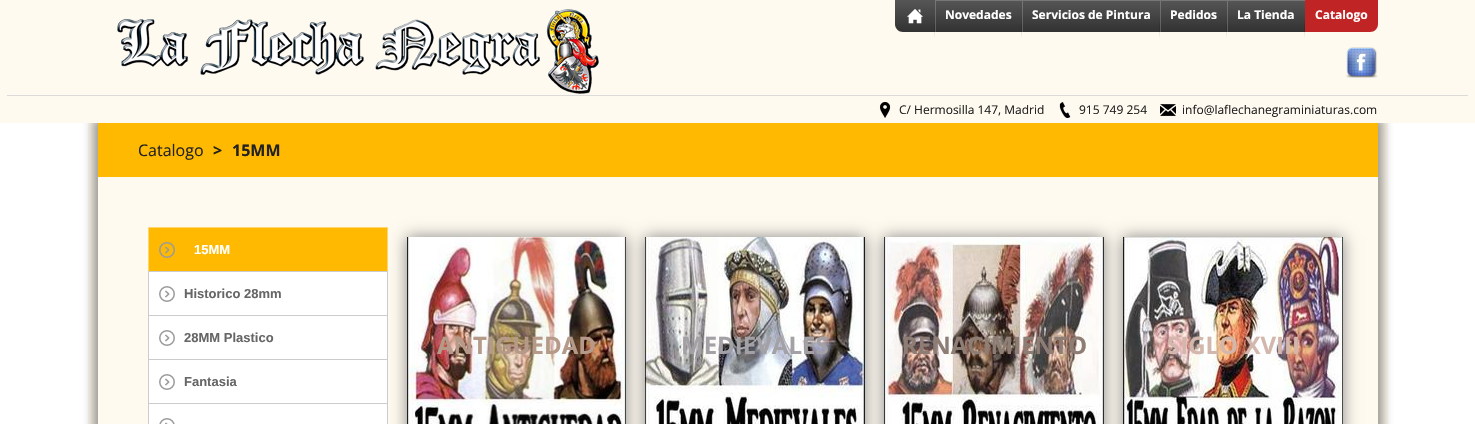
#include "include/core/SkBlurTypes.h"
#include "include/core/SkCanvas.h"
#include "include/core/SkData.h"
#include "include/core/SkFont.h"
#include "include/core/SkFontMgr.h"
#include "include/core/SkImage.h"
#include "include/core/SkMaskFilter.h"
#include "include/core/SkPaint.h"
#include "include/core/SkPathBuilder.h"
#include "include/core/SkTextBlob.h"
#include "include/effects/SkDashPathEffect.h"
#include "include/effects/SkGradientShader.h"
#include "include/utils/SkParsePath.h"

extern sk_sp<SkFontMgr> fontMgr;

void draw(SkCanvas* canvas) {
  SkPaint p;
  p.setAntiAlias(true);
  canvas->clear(SK_ColorWHITE);
  p.setColor(SkColorSetRGB(255, 250, 239));
  canvas->drawRect(SkRect::MakeLTRB(88, 123, 1388, 424), p);
  canvas->save();
  canvas->clipPath(SkPathBuilder(SkPathFillType::kEvenOdd).moveTo(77, 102).lineTo(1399, 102).lineTo(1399, 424).lineTo(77, 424).close().moveTo(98, 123).lineTo(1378, 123).lineTo(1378, 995).lineTo(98, 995).close().detach(), true);
  p.setColor(SkColorSetARGB(128, 50, 50, 50));
  p.setMaskFilter(SkMaskFilter::MakeBlur(kNormal_SkBlurStyle, 5));
  canvas->drawRect(SkRect::MakeLTRB(93, 118, 1383, 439), p);
  p.setMaskFilter(nullptr);
  canvas->restore();
  p.setColor(SkColorSetRGB(255, 250, 239));
  canvas->drawRect(SkRect::MakeLTRB(0, 0, 1475, 123), p);
  canvas->drawImageRect(SkImages::DeferredFromEncodedData(SkData::MakeFromFileName("images/1.png")), SkRect::MakeLTRB(117, 9, 599, 94), SkSamplingOptions());
  {
    const SkColor colors[] = {SkColorSetRGB(86, 86, 86), SkColorSetRGB(50, 50, 50)};
    const float stops[] = {0, 1};
    const SkPoint ends[] = {{915, 0}, {915, 32}};
    p.setShader(SkGradientShader::MakeLinear(ends, colors, stops, 2, SkTileMode::kClamp));
    p.setAlpha(255);
  }
  canvas->drawPath(SkPathBuilder().moveTo(895, 0).lineTo(935, 0).lineTo(935, 32).lineTo(903, 32).cubicTo(898.5f, 32, 895, 28.5f, 895, 24).close().detach(), p);
  canvas->drawImageRect(SkImages::DeferredFromEncodedData(SkData::MakeFromFileName("images/2.png")), SkRect::MakeLTRB(907, 9, 923, 24), SkSamplingOptions());
  {
    const SkColor colors[] = {SkColorSetARGB(0, 0, 0, 0), SkColorSetARGB(38, 0, 0, 0), SkColorSetARGB(0, 0, 0, 0)};
    const float stops[] = {0, 0.5f, 1};
    const SkPoint ends[] = {{935, 18}, {935, 38}};
    p.setShader(SkGradientShader::MakeLinear(ends, colors, stops, 3, SkTileMode::kClamp));
    p.setAlpha(255);
  }
  canvas->drawRect(SkRect::MakeLTRB(934, 18, 935, 38), p);
  {
    const SkColor colors[] = {SkColorSetRGB(255, 250, 239), SkColorSetRGB(255, 252, 245), SkColorSetRGB(255, 250, 239)};
    const float stops[] = {0, 0.5f, 1};
    const SkPoint ends[] = {{936, 18}, {936, 38}};
    p.setShader(SkGradientShader::MakeLinear(ends, colors, stops, 3, SkTileMode::kClamp));
    p.setAlpha(255);
  }
  canvas->drawRect(SkRect::MakeLTRB(935, 32, 936, 38), p);
  {
    const SkColor colors[] = {SkColorSetRGB(86, 86, 86), SkColorSetRGB(50, 50, 50)};
    const float stops[] = {0, 1};
    const SkPoint ends[] = {{979, 0}, {979, 32}};
    p.setShader(SkGradientShader::MakeLinear(ends, colors, stops, 2, SkTileMode::kClamp));
    p.setAlpha(255);
  }
  canvas->drawRect(SkRect::MakeLTRB(935, 0, 1022, 32), p);
  canvas->save();
  canvas->clipRect(SkRect::MakeLTRB(935, 0, 1022, 32));
  p.setShader(nullptr);
  p.setColor(SkColorSetARGB(51, 255, 255, 255));
  canvas->drawPath(SkPathBuilder(SkPathFillType::kEvenOdd).moveTo(836, -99).lineTo(1121, -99).lineTo(1121, 131).lineTo(836, 131).close().moveTo(936, 1).lineTo(1023, 1).lineTo(1023, 33).lineTo(936, 33).close().detach(), p);
  canvas->restore();
  {
    const SkColor colors[] = {SkColorSetARGB(0, 0, 0, 0), SkColorSetARGB(38, 0, 0, 0), SkColorSetARGB(0, 0, 0, 0)};
    const float stops[] = {0, 0.5f, 1};
    const SkPoint ends[] = {{1022, 18}, {1022, 38}};
    p.setShader(SkGradientShader::MakeLinear(ends, colors, stops, 3, SkTileMode::kClamp));
    p.setAlpha(255);
  }
  canvas->drawRect(SkRect::MakeLTRB(1021, 18, 1022, 38), p);
  {
    const SkColor colors[] = {SkColorSetRGB(255, 250, 239), SkColorSetRGB(255, 252, 245), SkColorSetRGB(255, 250, 239)};
    const float stops[] = {0, 0.5f, 1};
    const SkPoint ends[] = {{1023, 18}, {1023, 38}};
    p.setShader(SkGradientShader::MakeLinear(ends, colors, stops, 3, SkTileMode::kClamp));
    p.setAlpha(255);
  }
  canvas->drawRect(SkRect::MakeLTRB(1022, 32, 1023, 38), p);
  {
    const SkColor colors[] = {SkColorSetRGB(86, 86, 86), SkColorSetRGB(50, 50, 50)};
    const float stops[] = {0, 1};
    const SkPoint ends[] = {{1091, 0}, {1091, 32}};
    p.setShader(SkGradientShader::MakeLinear(ends, colors, stops, 2, SkTileMode::kClamp));
    p.setAlpha(255);
  }
  canvas->drawRect(SkRect::MakeLTRB(1022, 0, 1160, 32), p);
  canvas->save();
  canvas->clipRect(SkRect::MakeLTRB(1022, 0, 1160, 32));
  p.setShader(nullptr);
  p.setColor(SkColorSetARGB(51, 255, 255, 255));
  canvas->drawPath(SkPathBuilder(SkPathFillType::kEvenOdd).moveTo(923, -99).lineTo(1259, -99).lineTo(1259, 131).lineTo(923, 131).close().moveTo(1023, 1).lineTo(1161, 1).lineTo(1161, 33).lineTo(1023, 33).close().detach(), p);
  canvas->restore();
  {
    const SkColor colors[] = {SkColorSetARGB(0, 0, 0, 0), SkColorSetARGB(38, 0, 0, 0), SkColorSetARGB(0, 0, 0, 0)};
    const float stops[] = {0, 0.5f, 1};
    const SkPoint ends[] = {{1160, 18}, {1160, 38}};
    p.setShader(SkGradientShader::MakeLinear(ends, colors, stops, 3, SkTileMode::kClamp));
    p.setAlpha(255);
  }
  canvas->drawRect(SkRect::MakeLTRB(1159, 18, 1160, 38), p);
  {
    const SkColor colors[] = {SkColorSetRGB(255, 250, 239), SkColorSetRGB(255, 252, 245), SkColorSetRGB(255, 250, 239)};
    const float stops[] = {0, 0.5f, 1};
    const SkPoint ends[] = {{1161, 18}, {1161, 38}};
    p.setShader(SkGradientShader::MakeLinear(ends, colors, stops, 3, SkTileMode::kClamp));
    p.setAlpha(255);
  }
  canvas->drawRect(SkRect::MakeLTRB(1160, 32, 1161, 38), p);
  {
    const SkColor colors[] = {SkColorSetRGB(86, 86, 86), SkColorSetRGB(50, 50, 50)};
    const float stops[] = {0, 1};
    const SkPoint ends[] = {{1194, 0}, {1194, 32}};
    p.setShader(SkGradientShader::MakeLinear(ends, colors, stops, 2, SkTileMode::kClamp));
    p.setAlpha(255);
  }
  canvas->drawRect(SkRect::MakeLTRB(1160, 0, 1227, 32), p);
  canvas->save();
  canvas->clipRect(SkRect::MakeLTRB(1160, 0, 1227, 32));
  p.setShader(nullptr);
  p.setColor(SkColorSetARGB(51, 255, 255, 255));
  canvas->drawPath(SkPathBuilder(SkPathFillType::kEvenOdd).moveTo(1061, -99).lineTo(1326, -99).lineTo(1326, 131).lineTo(1061, 131).close().moveTo(1161, 1).lineTo(1228, 1).lineTo(1228, 33).lineTo(1161, 33).close().detach(), p);
  canvas->restore();
  {
    const SkColor colors[] = {SkColorSetARGB(0, 0, 0, 0), SkColorSetARGB(38, 0, 0, 0), SkColorSetARGB(0, 0, 0, 0)};
    const float stops[] = {0, 0.5f, 1};
    const SkPoint ends[] = {{1227, 18}, {1227, 38}};
    p.setShader(SkGradientShader::MakeLinear(ends, colors, stops, 3, SkTileMode::kClamp));
    p.setAlpha(255);
  }
  canvas->drawRect(SkRect::MakeLTRB(1226, 18, 1227, 38), p);
  {
    const SkColor colors[] = {SkColorSetRGB(255, 250, 239), SkColorSetRGB(255, 252, 245), SkColorSetRGB(255, 250, 239)};
    const float stops[] = {0, 0.5f, 1};
    const SkPoint ends[] = {{1228, 18}, {1228, 38}};
    p.setShader(SkGradientShader::MakeLinear(ends, colors, stops, 3, SkTileMode::kClamp));
    p.setAlpha(255);
  }
  canvas->drawRect(SkRect::MakeLTRB(1227, 32, 1228, 38), p);
  {
    const SkColor colors[] = {SkColorSetRGB(86, 86, 86), SkColorSetRGB(50, 50, 50)};
    const float stops[] = {0, 1};
    const SkPoint ends[] = {{1266, 0}, {1266, 32}};
    p.setShader(SkGradientShader::MakeLinear(ends, colors, stops, 2, SkTileMode::kClamp));
    p.setAlpha(255);
  }
  canvas->drawRect(SkRect::MakeLTRB(1227, 0, 1305, 32), p);
  canvas->save();
  canvas->clipRect(SkRect::MakeLTRB(1227, 0, 1305, 32));
  p.setShader(nullptr);
  p.setColor(SkColorSetARGB(51, 255, 255, 255));
  canvas->drawPath(SkPathBuilder(SkPathFillType::kEvenOdd).moveTo(1128, -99).lineTo(1404, -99).lineTo(1404, 131).lineTo(1128, 131).close().moveTo(1228, 1).lineTo(1306, 1).lineTo(1306, 33).lineTo(1228, 33).close().detach(), p);
  canvas->restore();
  {
    const SkColor colors[] = {SkColorSetARGB(0, 0, 0, 0), SkColorSetARGB(38, 0, 0, 0), SkColorSetARGB(0, 0, 0, 0)};
    const float stops[] = {0, 0.5f, 1};
    const SkPoint ends[] = {{1305, 18}, {1305, 38}};
    p.setShader(SkGradientShader::MakeLinear(ends, colors, stops, 3, SkTileMode::kClamp));
    p.setAlpha(255);
  }
  canvas->drawRect(SkRect::MakeLTRB(1304, 18, 1305, 38), p);
  {
    const SkColor colors[] = {SkColorSetRGB(255, 250, 239), SkColorSetRGB(255, 252, 245), SkColorSetRGB(255, 250, 239)};
    const float stops[] = {0, 0.5f, 1};
    const SkPoint ends[] = {{1306, 18}, {1306, 38}};
    p.setShader(SkGradientShader::MakeLinear(ends, colors, stops, 3, SkTileMode::kClamp));
    p.setAlpha(255);
  }
  canvas->drawRect(SkRect::MakeLTRB(1305, 32, 1306, 38), p);
  p.setShader(nullptr);
  p.setColor(SkColorSetRGB(193, 36, 36));
  canvas->drawPath(SkPathBuilder().moveTo(1305, 0).lineTo(1378, 0).lineTo(1378, 24).cubicTo(1378, 28.5f, 1374.5f, 32, 1370, 32).lineTo(1305, 32).close().detach(), p);
  canvas->drawImageRect(SkImages::DeferredFromEncodedData(SkData::MakeFromFileName("images/3.png")), SkRect::MakeLTRB(1346, 47, 1378, 78), SkSamplingOptions());
  p.setColor(SkColorSetRGB(221, 218, 218));
  canvas->drawRect(SkRect::MakeLTRB(7, 95, 1468, 96), p);
  canvas->drawImageRect(SkImages::DeferredFromEncodedData(SkData::MakeFromFileName("images/4.png")), SkRect::MakeLTRB(879, 102, 891, 118), SkSamplingOptions());
  canvas->drawImageRect(SkImages::DeferredFromEncodedData(SkData::MakeFromFileName("images/5.png")), SkRect::MakeLTRB(1059, 102, 1071, 118), SkSamplingOptions());
  canvas->drawImageRect(SkImages::DeferredFromEncodedData(SkData::MakeFromFileName("images/6.png")), SkRect::MakeLTRB(1160, 104, 1176, 117), SkSamplingOptions());
  p.setColor(SkColorSetRGB(255, 185, 1));
  canvas->drawRect(SkRect::MakeLTRB(98, 123, 1378, 177), p);
  p.setColor(SK_ColorWHITE);
  canvas->drawRect(SkRect::MakeLTRB(149, 272, 387, 424), p);
  p.setColor(SkColorSetRGB(136, 136, 136));
  p.setMaskFilter(SkMaskFilter::MakeBlur(kNormal_SkBlurStyle, 7.5f));
  canvas->drawRect(SkRect::MakeLTRB(407, 237, 626, 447), p);
  p.setMaskFilter(nullptr);
  p.setColor(SkColorSetRGB(255, 185, 1));
  canvas->drawRect(SkRect::MakeLTRB(149, 228, 387, 271), p);
  p.setColor(SkColorSetRGB(255, 215, 110));
  canvas->drawRect(SkRect::MakeLTRB(148, 227, 388, 228), p);
  canvas->drawRect(SkRect::MakeLTRB(387, 227, 388, 271), p);
  canvas->drawRect(SkRect::MakeLTRB(148, 227, 149, 271), p);
  canvas->drawImageRect(SkImages::DeferredFromEncodedData(SkData::MakeFromFileName("images/7.png")), SkRect::MakeLTRB(159, 242, 175, 258), SkSamplingOptions());
  p.setColor(SkColorSetRGB(204, 204, 204));
  canvas->drawRect(SkRect::MakeLTRB(148, 271, 388, 272), p);
  canvas->drawRect(SkRect::MakeLTRB(387, 271, 388, 315), p);
  canvas->drawRect(SkRect::MakeLTRB(148, 271, 149, 315), p);
  canvas->drawImageRect(SkImages::DeferredFromEncodedData(SkData::MakeFromFileName("images/8.png")), SkRect::MakeLTRB(159, 286, 175, 302), SkSamplingOptions());
  canvas->drawRect(SkRect::MakeLTRB(148, 315, 388, 316), p);
  canvas->drawRect(SkRect::MakeLTRB(387, 315, 388, 359), p);
  canvas->drawRect(SkRect::MakeLTRB(148, 315, 149, 359), p);
  canvas->drawImageRect(SkImages::DeferredFromEncodedData(SkData::MakeFromFileName("images/8.png")), SkRect::MakeLTRB(159, 330, 175, 346), SkSamplingOptions());
  canvas->drawRect(SkRect::MakeLTRB(148, 359, 388, 360), p);
  canvas->drawRect(SkRect::MakeLTRB(387, 359, 388, 403), p);
  canvas->drawRect(SkRect::MakeLTRB(148, 359, 149, 403), p);
  canvas->drawImageRect(SkImages::DeferredFromEncodedData(SkData::MakeFromFileName("images/8.png")), SkRect::MakeLTRB(159, 374, 175, 390), SkSamplingOptions());
  canvas->drawRect(SkRect::MakeLTRB(148, 403, 388, 404), p);
  canvas->drawRect(SkRect::MakeLTRB(387, 403, 388, 424), p);
  canvas->drawRect(SkRect::MakeLTRB(148, 403, 149, 424), p);
  canvas->drawImageRect(SkImages::DeferredFromEncodedData(SkData::MakeFromFileName("images/9.png")), SkRect::MakeLTRB(159, 418, 175, 424), SkSamplingOptions());
  canvas->drawImageRect(SkImages::DeferredFromEncodedData(SkData::MakeFromFileName("images/10.png")), SkRect::MakeLTRB(407, 237, 626, 424), SkSamplingOptions());
  p.setColor(SkColorSetRGB(136, 136, 136));
  p.setMaskFilter(SkMaskFilter::MakeBlur(kNormal_SkBlurStyle, 7.5f));
  canvas->drawRect(SkRect::MakeLTRB(645, 237, 865, 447), p);
  p.setMaskFilter(nullptr);
  canvas->drawImageRect(SkImages::DeferredFromEncodedData(SkData::MakeFromFileName("images/11.png")), SkRect::MakeLTRB(645, 237, 865, 424), SkSamplingOptions());
  p.setMaskFilter(SkMaskFilter::MakeBlur(kNormal_SkBlurStyle, 7.5f));
  canvas->drawRect(SkRect::MakeLTRB(884, 237, 1104, 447), p);
  p.setMaskFilter(nullptr);
  canvas->drawImageRect(SkImages::DeferredFromEncodedData(SkData::MakeFromFileName("images/12.png")), SkRect::MakeLTRB(884, 237, 1104, 424), SkSamplingOptions());
  p.setMaskFilter(SkMaskFilter::MakeBlur(kNormal_SkBlurStyle, 7.5f));
  canvas->drawRect(SkRect::MakeLTRB(1123, 237, 1343, 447), p);
  p.setMaskFilter(nullptr);
  canvas->drawImageRect(SkImages::DeferredFromEncodedData(SkData::MakeFromFileName("images/13.png")), SkRect::MakeLTRB(1123, 237, 1343, 424), SkSamplingOptions());
  SkFont font1(fontMgr->matchFamilyStyle("Open Sans", SkFontStyle::Bold()), 12);
  font1.setSubpixel(true);
  p.setColor(SK_ColorWHITE);
  canvas->drawString("Novedades", 945, 19, font1, p);
  canvas->drawString("Servicios de Pintura", 1032, 19, font1, p);
  canvas->drawString("Pedidos", 1170, 19, font1, p);
  canvas->drawString("La Tienda", 1237, 19, font1, p);
  canvas->drawString("Catalogo", 1315, 19, font1, p);
  SkFont font2(fontMgr->matchFamilyStyle("Open Sans", SkFontStyle::Normal()), 12);
  font2.setSubpixel(true);
  p.setColor(SkColorSetRGB(34, 34, 34));
  canvas->drawString("C/ Hermosilla 147, Madrid", 899, 114, font2, p);
  canvas->drawString("915 749 254", 1079, 114, font2, p);
  canvas->drawString("info@laflechanegraminiaturas.com", 1182, 114, font2, p);
  SkFont font3(fontMgr->matchFamilyStyle("Open Sans", SkFontStyle::Normal()), 16);
  font3.setSubpixel(true);
  canvas->drawString("Catalogo", 138, 156, font3, p);
  SkFont font4(fontMgr->matchFamilyStyle("Open Sans", SkFontStyle::Bold()), 16);
  font4.setSubpixel(true);
  canvas->drawString(">", 213, 156, font4, p);
  canvas->drawString("15MM", 232, 156, font4, p);
  SkFont font5(fontMgr->matchFamilyStyle("Liberation Sans", SkFontStyle::Bold()), 13);
  font5.setSubpixel(true);
  p.setColor(SK_ColorWHITE);
  canvas->drawString("15MM", 194, 254, font5, p);
  p.setColor(SkColorSetRGB(102, 102, 102));
  canvas->drawString("Historico 28mm", 184, 298, font5, p);
  canvas->drawString("28MM Plastico", 184, 342, font5, p);
  canvas->drawString("Fantasia", 184, 386, font5, p);
  SkFont font6(fontMgr->matchFamilyStyle("Open Sans", SkFontStyle::Bold()), 24);
  font6.setSubpixel(true);
  p.setColor(SkColorSetRGB(181, 154, 137));
  canvas->drawString("ANTIGUEDAD", 437, 354, font6, p);
  p.setColor(SkColorSetRGB(163, 161, 165));
  canvas->drawString("MEDIEVALES", 681, 354, font6, p);
  p.setColor(SkColorSetRGB(142, 125, 117));
  canvas->drawString("RENACIMIENTO", 902, 354, font6, p);
  p.setColor(SkColorSetRGB(211, 183, 173));
  canvas->drawString("SIGLO XVIII", 1167, 354, font6, p);
}
